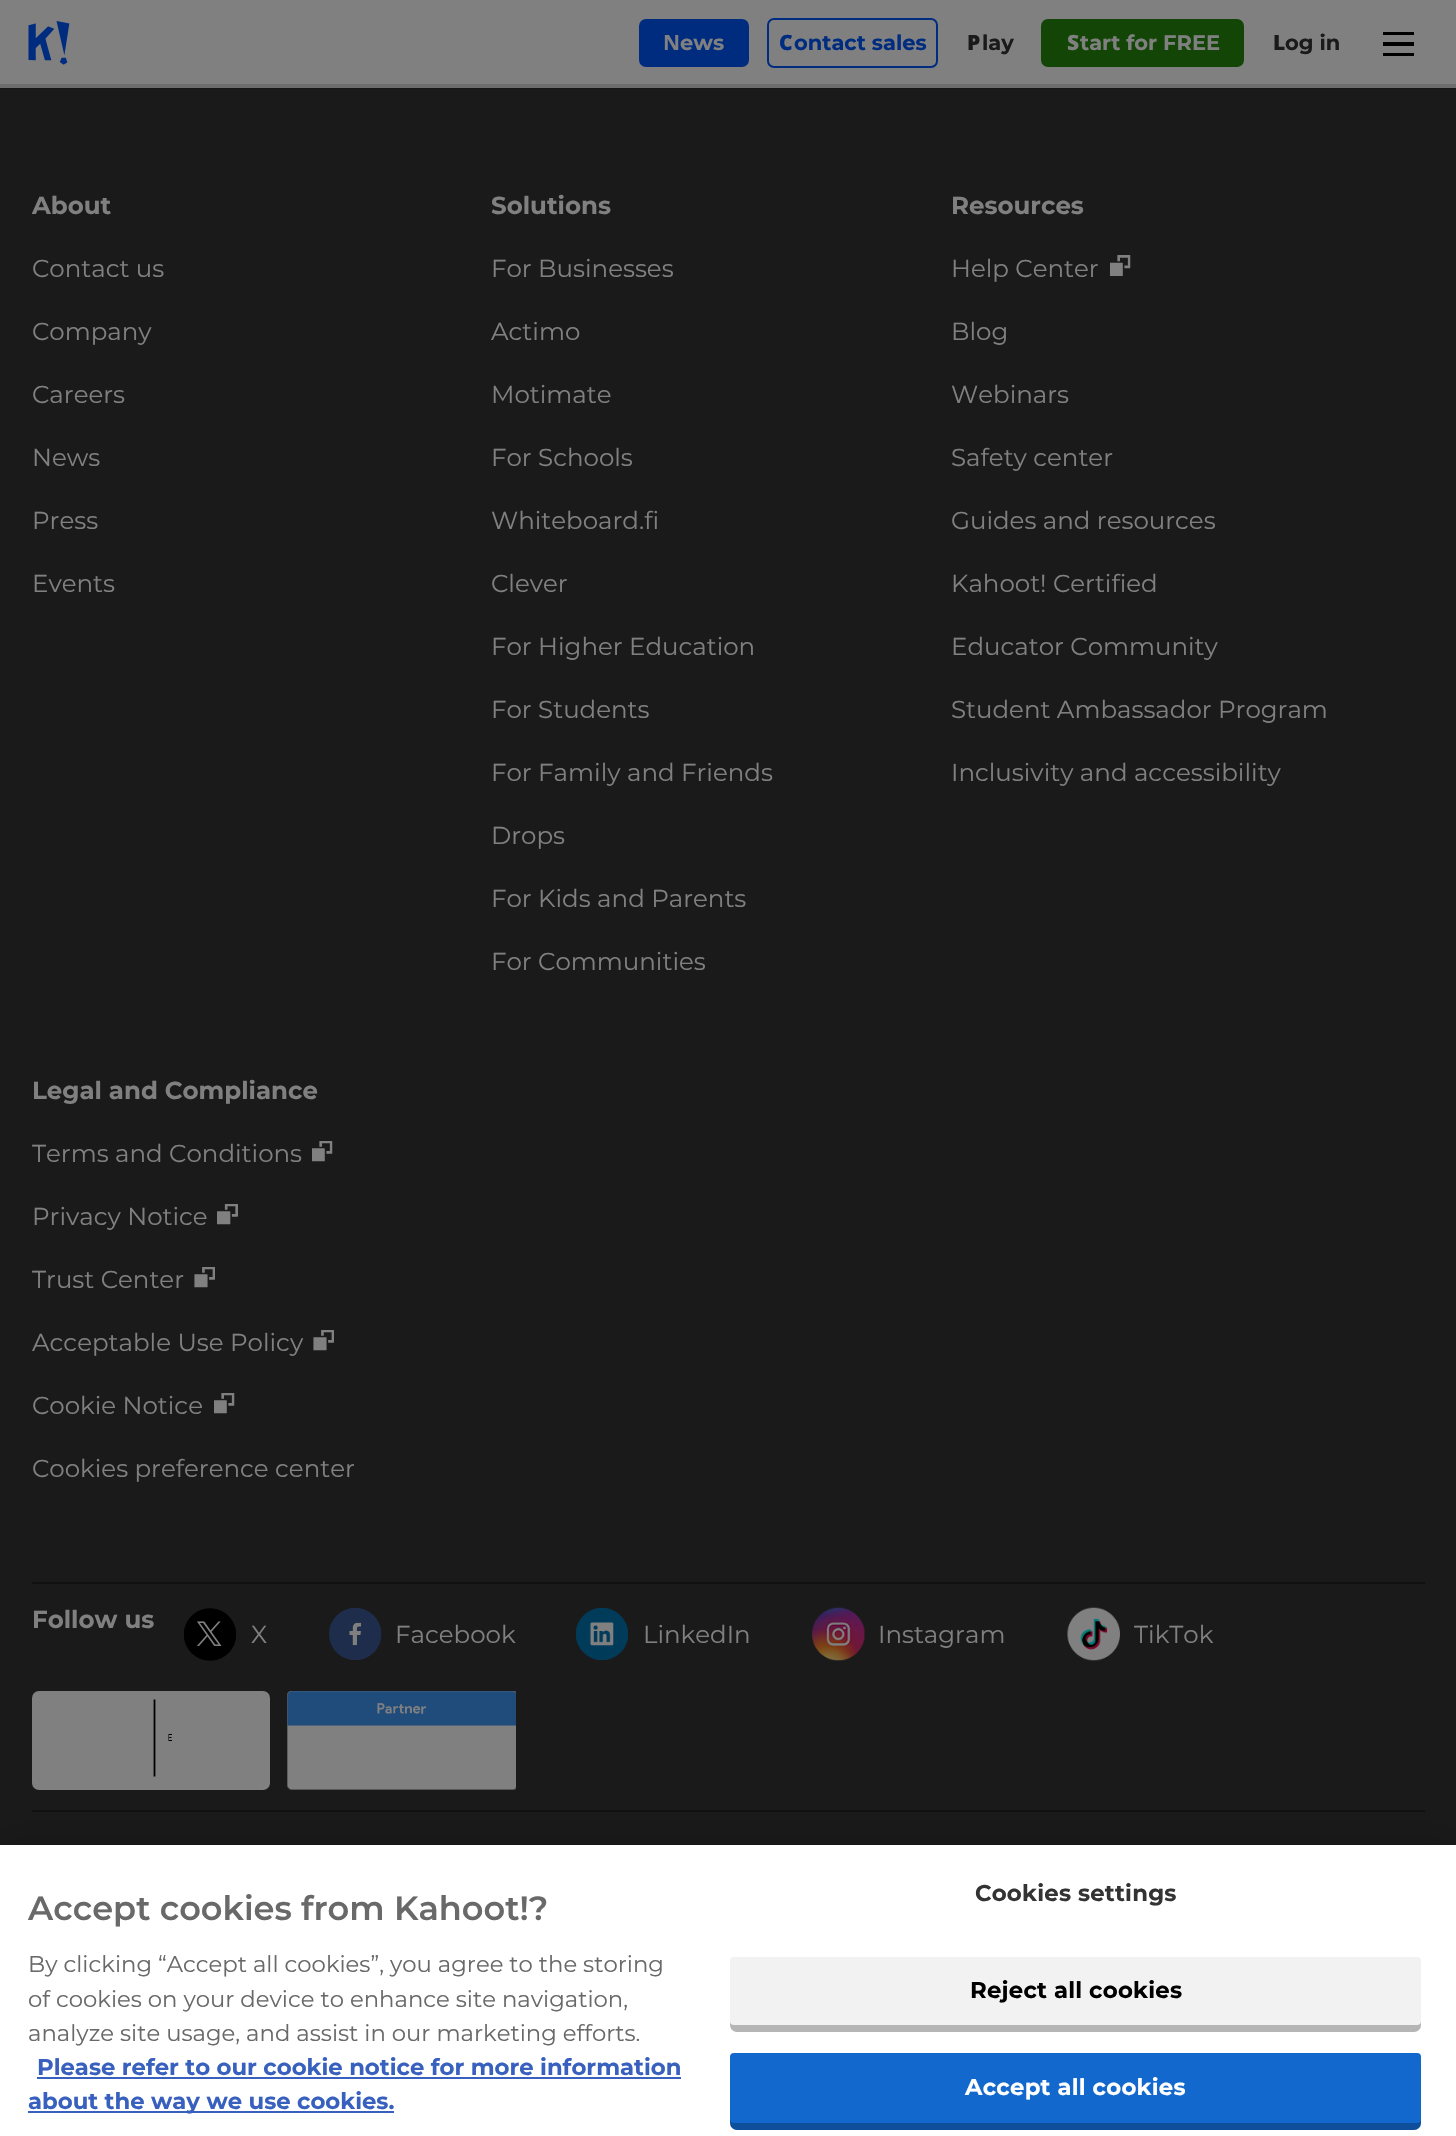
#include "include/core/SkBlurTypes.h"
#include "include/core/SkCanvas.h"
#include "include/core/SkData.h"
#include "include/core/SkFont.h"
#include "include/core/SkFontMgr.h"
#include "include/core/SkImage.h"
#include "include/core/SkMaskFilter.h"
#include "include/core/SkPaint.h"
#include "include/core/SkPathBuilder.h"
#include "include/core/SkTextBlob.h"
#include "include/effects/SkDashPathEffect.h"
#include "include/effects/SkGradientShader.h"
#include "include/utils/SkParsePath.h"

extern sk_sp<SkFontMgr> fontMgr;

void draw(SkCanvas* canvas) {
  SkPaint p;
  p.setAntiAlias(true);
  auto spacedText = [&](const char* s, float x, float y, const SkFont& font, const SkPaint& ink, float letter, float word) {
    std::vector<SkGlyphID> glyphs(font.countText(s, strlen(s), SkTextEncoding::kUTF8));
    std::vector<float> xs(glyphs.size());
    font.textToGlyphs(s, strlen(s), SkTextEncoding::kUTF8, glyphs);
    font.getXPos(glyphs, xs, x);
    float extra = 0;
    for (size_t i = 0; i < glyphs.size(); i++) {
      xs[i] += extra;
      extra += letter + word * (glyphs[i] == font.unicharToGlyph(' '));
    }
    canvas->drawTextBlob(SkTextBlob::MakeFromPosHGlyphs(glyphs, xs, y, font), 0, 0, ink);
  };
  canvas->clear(SkColorSetRGB(128, 128, 128));
  p.setColor(SkColorSetRGB(109, 109, 109));
  canvas->drawRect(SkRect::MakeLTRB(0, 84, 1456, 88), p);
  canvas->drawImageRect(SkImages::DeferredFromEncodedData(SkData::MakeFromFileName("images/1.png")), SkRect::MakeLTRB(28, 21, 70, 65), SkSamplingOptions());
  p.setColor(SkColorSetRGB(0, 44, 128));
  canvas->drawRoundRect(SkRect::MakeLTRB(639, 19, 749, 67), 7, 7, p);
  p.setStyle(SkPaint::kStroke_Style);
  p.setStrokeWidth(2);
  canvas->drawRoundRect(SkRect::MakeLTRB(768, 19, 937, 67), 6, 6, p);
  p.setStyle(SkPaint::kFill_Style);
  p.setColor(SkColorSetRGB(19, 69, 6));
  canvas->drawRoundRect(SkRect::MakeLTRB(1041, 19, 1244, 67), 7, 7, p);
  p.setColor(SK_ColorBLACK);
  canvas->drawRect(SkRect::MakeLTRB(1383, 32, 1414, 35), p);
  canvas->drawRect(SkRect::MakeLTRB(1383, 42, 1414, 46), p);
  canvas->drawRect(SkRect::MakeLTRB(1383, 53, 1414, 56), p);
  p.setColor(SkColorSetRGB(26, 26, 26));
  canvas->drawRect(SkRect::MakeLTRB(0, 89, 1456, 1845), p);
  p.setColor(SkColorSetRGB(22, 22, 22));
  canvas->drawRect(SkRect::MakeLTRB(0, 88, 1456, 89), p);
  canvas->drawImageRect(SkImages::DeferredFromEncodedData(SkData::MakeFromFileName("images/2.png")), SkRect::MakeLTRB(1110, 255, 1131, 276), SkSamplingOptions());
  canvas->drawImageRect(SkImages::DeferredFromEncodedData(SkData::MakeFromFileName("images/3.png")), SkRect::MakeLTRB(312, 1141, 333, 1162), SkSamplingOptions());
  canvas->drawImageRect(SkImages::DeferredFromEncodedData(SkData::MakeFromFileName("images/4.png")), SkRect::MakeLTRB(217, 1204, 238, 1225), SkSamplingOptions());
  canvas->drawImageRect(SkImages::DeferredFromEncodedData(SkData::MakeFromFileName("images/5.png")), SkRect::MakeLTRB(194, 1267, 215, 1288), SkSamplingOptions());
  canvas->drawImageRect(SkImages::DeferredFromEncodedData(SkData::MakeFromFileName("images/5.png")), SkRect::MakeLTRB(313, 1330, 334, 1351), SkSamplingOptions());
  canvas->drawImageRect(SkImages::DeferredFromEncodedData(SkData::MakeFromFileName("images/3.png")), SkRect::MakeLTRB(214, 1393, 235, 1414), SkSamplingOptions());
  p.setColor(SkColorSetRGB(17, 17, 17));
  canvas->drawRect(SkRect::MakeLTRB(32, 1582, 1425, 1584), p);
  canvas->drawRect(SkRect::MakeLTRB(32, 1810, 1425, 1812), p);
  canvas->drawImageRect(SkImages::DeferredFromEncodedData(SkData::MakeFromFileName("images/6.png")), SkRect::MakeLTRB(184, 1608, 236, 1661), SkSamplingOptions());
  canvas->drawImageRect(SkImages::DeferredFromEncodedData(SkData::MakeFromFileName("images/7.png")), SkRect::MakeLTRB(329, 1608, 382, 1660), SkSamplingOptions());
  canvas->drawImageRect(SkImages::DeferredFromEncodedData(SkData::MakeFromFileName("images/8.png")), SkRect::MakeLTRB(576, 1608, 628, 1660), SkSamplingOptions());
  canvas->drawImageRect(SkImages::DeferredFromEncodedData(SkData::MakeFromFileName("images/9.png")), SkRect::MakeLTRB(812, 1607, 865, 1661), SkSamplingOptions());
  canvas->drawImageRect(SkImages::DeferredFromEncodedData(SkData::MakeFromFileName("images/10.png")), SkRect::MakeLTRB(1067, 1607, 1120, 1661), SkSamplingOptions());
  p.setColor(SkColorSetRGB(128, 128, 128));
  canvas->drawRoundRect(SkRect::MakeLTRB(32, 1691, 270, 1790), 7, 7, p);
  p.setStyle(SkPaint::kStroke_Style);
  p.setStrokeWidth(1.8f);
  p.setColor(SK_ColorBLACK);
  canvas->drawPath(SkPathBuilder().moveTo(154.5f, 1699.5f).lineTo(154.5f, 1776.5f).detach(), p);
  p.setStyle(SkPaint::kFill_Style);
  canvas->drawPath(SkPathBuilder().moveTo(172, 1741).lineTo(168.5f, 1741).lineTo(168.5f, 1734).lineTo(172, 1734).lineTo(172, 1735).lineTo(169, 1735).lineTo(169, 1737).lineTo(171.5f, 1737).lineTo(171.5f, 1738).lineTo(169, 1738).lineTo(169, 1740).lineTo(172, 1740).close().detach(), p);
  canvas->drawImageRect(SkImages::DeferredFromEncodedData(SkData::MakeFromFileName("images/11.png")), SkRect::MakeLTRB(287, 1691, 516, 1790), SkSamplingOptions());
  p.setColor(SkColorSetARGB(51, 0, 0, 0));
  p.setMaskFilter(SkMaskFilter::MakeBlur(kNormal_SkBlurStyle, 16));
  canvas->drawRect(SkRect::MakeLTRB(0, 1845, 1456, 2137), p);
  p.setMaskFilter(nullptr);
  p.setColor(SK_ColorWHITE);
  canvas->drawRect(SkRect::MakeLTRB(0, 1845, 1456, 2136), p);
  p.setColor(SkColorSetRGB(56, 96, 190));
  canvas->drawRect(SkRect::MakeLTRB(37, 2077, 681, 2079), p);
  canvas->drawRect(SkRect::MakeLTRB(28, 2111, 394, 2113), p);
  p.setColor(SkColorSetRGB(242, 242, 242));
  canvas->drawRoundRect(SkRect::MakeLTRB(730, 1957, 1421, 2032), 7, 7, p);
  p.setColor(SkColorSetARGB(64, 0, 0, 0));
  canvas->drawRoundRect(SkRect::MakeLTRB(730, 1957, 1421, 2032), 7, 7, p);
  p.setColor(SkColorSetRGB(242, 242, 242));
  canvas->drawRoundRect(SkRect::MakeLTRB(730, 1957, 1421, 2025), 4, 4, p);
  p.setColor(SkColorSetRGB(19, 104, 206));
  canvas->drawRoundRect(SkRect::MakeLTRB(730, 2053, 1421, 2130), 7, 7, p);
  p.setColor(SkColorSetARGB(64, 0, 0, 0));
  canvas->drawRoundRect(SkRect::MakeLTRB(730, 2053, 1421, 2130), 7, 7, p);
  p.setColor(SkColorSetRGB(19, 104, 206));
  canvas->drawRoundRect(SkRect::MakeLTRB(730, 2053, 1421, 2123), 4, 4, p);
  SkFont font1(fontMgr->matchFamilyStyle("Noto Sans", SkFontStyle::Bold()), 21);
  font1.setSubpixel(true);
  p.setColor(SkColorSetRGB(128, 128, 128));
  canvas->drawString("N", 663, 50, font1, p);
  SkFont font2(fontMgr->matchFamilyStyle("Montserrat", SkFontStyle::Bold()), 21);
  font2.setSubpixel(true);
  canvas->drawString("ews", 680, 50, font2, p);
  SkFont font3(fontMgr->matchFamilyStyle("Noto Sans", SkFontStyle(900, SkFontStyle::kNormal_Width, SkFontStyle::kUpright_Slant)), 21);
  font3.setSubpixel(true);
  p.setColor(SkColorSetRGB(0, 44, 128));
  canvas->drawString("C", 779, 50, font3, p);
  canvas->drawString("ontact sales", 794, 50, font2, p);
  p.setColor(SkColorSetRGB(26, 26, 26));
  canvas->drawString("P", 967, 50, font3, p);
  canvas->drawString("lay", 982, 50, font2, p);
  p.setColor(SkColorSetRGB(128, 128, 128));
  canvas->drawString("S", 1067, 50, font3, p);
  canvas->drawString("tart for FREE", 1080, 50, font2, p);
  p.setColor(SkColorSetRGB(26, 26, 26));
  canvas->drawString("L", 1273, 50, font3, p);
  canvas->drawString("og in", 1285, 50, font2, p);
  SkFont font4(fontMgr->matchFamilyStyle("Montserrat", SkFontStyle::Bold()), 24.5f);
  font4.setSubpixel(true);
  p.setColor(SkColorSetRGB(128, 128, 128));
  canvas->drawString("About", 32, 214, font4, p);
  SkFont font5(fontMgr->matchFamilyStyle("Montserrat", SkFontStyle::Normal()), 24.5f);
  font5.setSubpixel(true);
  canvas->drawString("Contact us", 32, 277, font5, p);
  canvas->drawString("Company", 32, 340, font5, p);
  canvas->drawString("Careers", 32, 403, font5, p);
  canvas->drawString("News", 32, 466, font5, p);
  canvas->drawString("Press", 32, 529, font5, p);
  canvas->drawString("Events", 32, 592, font5, p);
  canvas->drawString("Solutions", 491, 214, font4, p);
  canvas->drawString("For Businesses", 491, 277, font5, p);
  canvas->drawString("Actimo", 491, 340, font5, p);
  canvas->drawString("Motimate", 491, 403, font5, p);
  canvas->drawString("For Schools", 491, 466, font5, p);
  canvas->drawString("Whiteboard.fi", 491, 529, font5, p);
  canvas->drawString("Clever", 491, 592, font5, p);
  canvas->drawString("For Higher Education", 491, 655, font5, p);
  canvas->drawString("For Students", 491, 718, font5, p);
  canvas->drawString("For Family and Friends", 491, 781, font5, p);
  canvas->drawString("Drops", 491, 844, font5, p);
  canvas->drawString("For Kids and Parents", 491, 907, font5, p);
  canvas->drawString("For Communities", 491, 970, font5, p);
  canvas->drawString("Resources", 951, 214, font4, p);
  canvas->drawString("Help Center", 951, 277, font5, p);
  canvas->drawString("Blog", 951, 340, font5, p);
  canvas->drawString("Webinars", 951, 403, font5, p);
  canvas->drawString("Safety center", 951, 466, font5, p);
  canvas->drawString("Guides and resources", 951, 529, font5, p);
  canvas->drawString("Kahoot! Certified", 951, 592, font5, p);
  canvas->drawString("Educator Community", 951, 655, font5, p);
  canvas->drawString("Student Ambassador Program", 951, 718, font5, p);
  canvas->drawString("Inclusivity and accessibility", 951, 781, font5, p);
  canvas->drawString("Legal and Compliance", 32, 1099, font4, p);
  canvas->drawString("Terms and Conditions", 32, 1162, font5, p);
  canvas->drawString("Privacy Notice", 32, 1225, font5, p);
  canvas->drawString("Trust Center", 32, 1288, font5, p);
  canvas->drawString("Acceptable Use Policy", 32, 1351, font5, p);
  canvas->drawString("Cookie Notice", 32, 1414, font5, p);
  canvas->drawString("Cookies preference center", 32, 1477, font5, p);
  canvas->drawString("Follow us", 32, 1628, font4, p);
  canvas->drawString("X", 251, 1643, font5, p);
  canvas->drawString("Facebook", 395, 1643, font5, p);
  canvas->drawString("LinkedIn", 643, 1643, font5, p);
  canvas->drawString("Instagram", 878, 1643, font5, p);
  canvas->drawString("TikTok", 1134, 1643, font5, p);
  SkFont font6(fontMgr->matchFamilyStyle("Montserrat", SkFontStyle(600, SkFontStyle::kNormal_Width, SkFontStyle::kUpright_Slant)), 33.6f);
  font6.setSubpixel(true);
  p.setColor(SkColorSetRGB(105, 105, 105));
  canvas->drawString("Accept cookies from Kahoot!?", 28, 1920, font6, p);
  SkFont font7(fontMgr->matchFamilyStyle("Montserrat", SkFontStyle::Normal()), 22.75f);
  font7.setSubpixel(true);
  canvas->drawString("By clicking “Accept all cookies”, you agree to the storing", 28, 1972, font7, p);
  canvas->drawString("of cookies on your device to enhance site navigation,", 28, 2007, font7, p);
  canvas->drawString("analyze site usage, and assist in our marketing efforts.", 28, 2041, font7, p);
  SkFont font8(fontMgr->matchFamilyStyle("Montserrat", SkFontStyle::Bold()), 22.75f);
  font8.setSubpixel(true);
  p.setColor(SkColorSetRGB(56, 96, 190));
  canvas->drawString("Please refer to our cookie notice for more information", 37, 2075, font8, p);
  canvas->drawString("about the way we use cookies.", 28, 2109, font8, p);
  p.setColor(SkColorSetRGB(51, 51, 51));
  spacedText("Cookies settings", 975, 1901, font8, p, 0.25f, 0);
  p.setColor(SK_ColorBLACK);
  spacedText("Reject all cookies", 970, 1998, font8, p, 0.25f, 0);
  p.setColor(SK_ColorWHITE);
  spacedText("Accept all cookies", 965, 2095, font8, p, 0.25f, 0);
}
